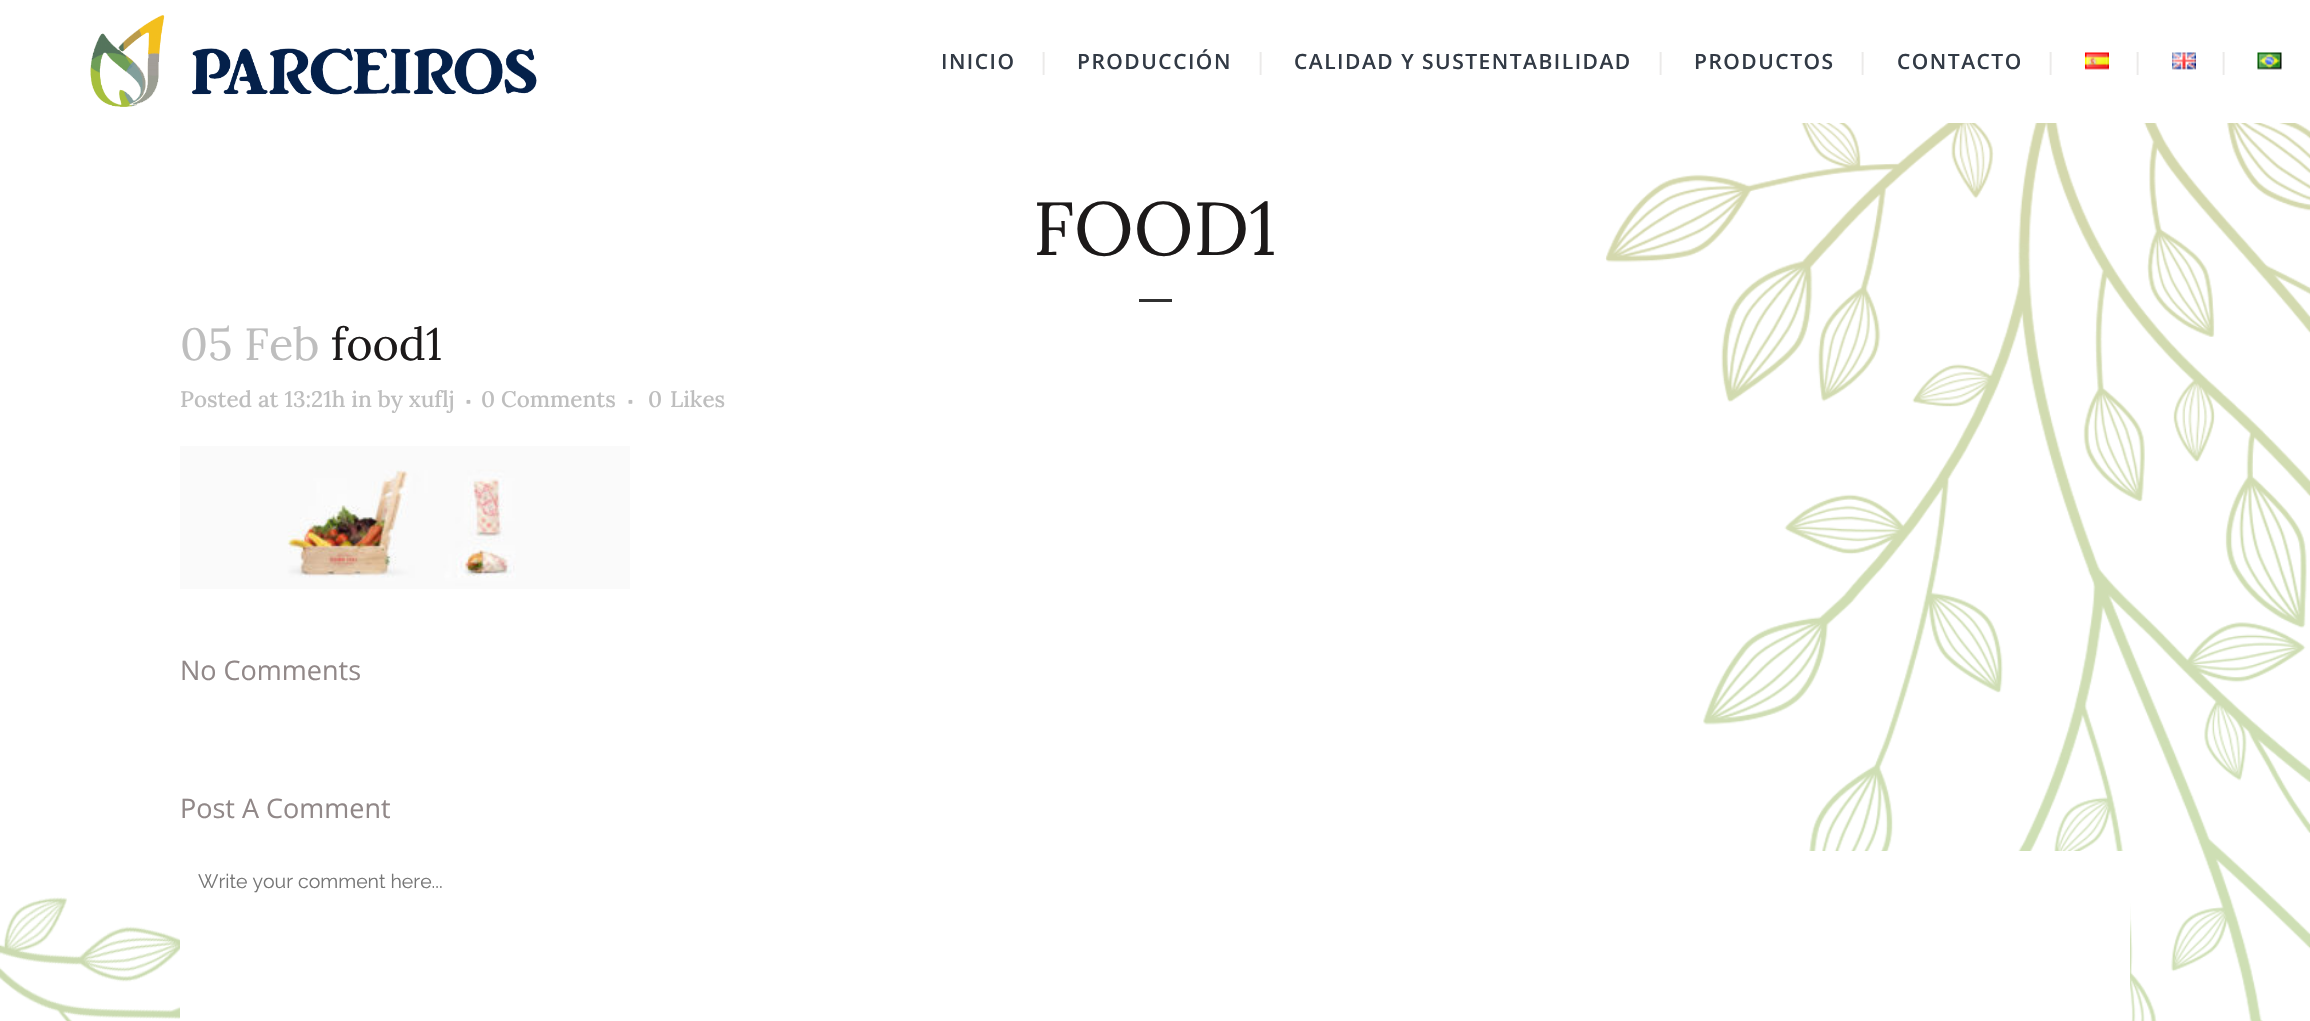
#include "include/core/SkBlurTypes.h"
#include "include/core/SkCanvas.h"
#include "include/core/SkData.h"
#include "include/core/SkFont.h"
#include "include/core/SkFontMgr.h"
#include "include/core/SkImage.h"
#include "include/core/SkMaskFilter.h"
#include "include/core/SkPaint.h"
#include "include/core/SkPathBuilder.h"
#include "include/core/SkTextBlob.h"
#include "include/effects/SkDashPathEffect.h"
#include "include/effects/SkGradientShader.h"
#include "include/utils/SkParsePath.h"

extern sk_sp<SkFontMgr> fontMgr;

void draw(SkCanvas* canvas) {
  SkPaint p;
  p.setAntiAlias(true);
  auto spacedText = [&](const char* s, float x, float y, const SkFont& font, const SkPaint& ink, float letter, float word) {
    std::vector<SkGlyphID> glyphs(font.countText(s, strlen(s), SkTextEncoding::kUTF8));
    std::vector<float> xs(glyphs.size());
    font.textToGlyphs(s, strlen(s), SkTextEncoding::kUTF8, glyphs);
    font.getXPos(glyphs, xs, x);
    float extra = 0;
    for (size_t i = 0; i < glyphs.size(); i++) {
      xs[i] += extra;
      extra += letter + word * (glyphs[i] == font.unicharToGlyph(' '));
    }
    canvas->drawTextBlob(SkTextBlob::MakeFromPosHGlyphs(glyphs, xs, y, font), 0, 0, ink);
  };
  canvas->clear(SK_ColorWHITE);
  canvas->drawImageRect(SkImages::DeferredFromEncodedData(SkData::MakeFromFileName("images/1.png")), SkRect::MakeLTRB(0, 123, 2310, 1021), SkSamplingOptions());
  canvas->drawImageRect(SkImages::DeferredFromEncodedData(SkData::MakeFromFileName("images/2.png")), SkRect::MakeLTRB(90, 15, 537, 107), SkSamplingOptions());
  canvas->drawImageRect(SkImages::DeferredFromEncodedData(SkData::MakeFromFileName("images/3.png")), SkRect::MakeLTRB(2085, 52, 2109, 70), SkSamplingOptions());
  canvas->drawImageRect(SkImages::DeferredFromEncodedData(SkData::MakeFromFileName("images/4.png")), SkRect::MakeLTRB(2172, 52, 2196, 70), SkSamplingOptions());
  canvas->drawImageRect(SkImages::DeferredFromEncodedData(SkData::MakeFromFileName("images/5.png")), SkRect::MakeLTRB(2257, 52, 2282, 70), SkSamplingOptions());
  p.setColor(SkColorSetRGB(48, 48, 48));
  canvas->drawRect(SkRect::MakeLTRB(1139, 299, 1172, 302), p);
  canvas->drawImageRect(SkImages::DeferredFromEncodedData(SkData::MakeFromFileName("images/6.png")), SkRect::MakeLTRB(466, 399, 471, 404), SkSamplingOptions());
  canvas->drawImageRect(SkImages::DeferredFromEncodedData(SkData::MakeFromFileName("images/6.png")), SkRect::MakeLTRB(628, 399, 633, 404), SkSamplingOptions());
  canvas->drawImageRect(SkImages::DeferredFromEncodedData(SkData::MakeFromFileName("images/7.png")), SkRect::MakeLTRB(180, 446, 630, 589), SkSamplingOptions());
  p.setColor(SK_ColorWHITE);
  canvas->drawRect(SkRect::MakeLTRB(180, 851, 2130, 1021), p);
  SkFont font1(fontMgr->matchFamilyStyle("Open Sans", SkFontStyle(600, SkFontStyle::kNormal_Width, SkFontStyle::kUpright_Slant)), 21);
  font1.setSubpixel(true);
  p.setColor(SkColorSetRGB(50, 58, 69));
  spacedText("INICIO", 941, 69, font1, p, 1.5f, 0);
  SkFont font2(fontMgr->matchFamilyStyle("Lora", SkFontStyle::Normal()), 22.5f);
  font2.setSubpixel(true);
  p.setColor(SkColorSetRGB(235, 234, 233));
  canvas->drawString("|", 1041, 69, font2, p);
  p.setColor(SkColorSetRGB(50, 58, 69));
  spacedText("PRODUCCIÓN", 1077, 69, font1, p, 1.5f, 0);
  p.setColor(SkColorSetRGB(235, 234, 233));
  canvas->drawString("|", 1258, 69, font2, p);
  p.setColor(SkColorSetRGB(50, 58, 69));
  spacedText("CALIDAD Y SUSTENTABILIDAD", 1294, 69, font1, p, 1.5f, 0);
  p.setColor(SkColorSetRGB(235, 234, 233));
  canvas->drawString("|", 1658, 69, font2, p);
  p.setColor(SkColorSetRGB(50, 58, 69));
  spacedText("PRODUCTOS", 1694, 69, font1, p, 1.5f, 0);
  p.setColor(SkColorSetRGB(235, 234, 233));
  canvas->drawString("|", 1860, 69, font2, p);
  p.setColor(SkColorSetRGB(50, 58, 69));
  spacedText("CONTACTO", 1897, 69, font1, p, 1.5f, 0);
  p.setColor(SkColorSetRGB(235, 234, 233));
  canvas->drawString("|", 2048, 69, font2, p);
  canvas->drawString("|", 2135, 69, font2, p);
  canvas->drawString("|", 2221, 69, font2, p);
  SkFont font3(fontMgr->matchFamilyStyle("Lora", SkFontStyle::Normal()), 75);
  font3.setSubpixel(true);
  p.setColor(SkColorSetRGB(28, 25, 25));
  canvas->drawString("FOOD1", 1033, 255, font3, p);
  SkFont font4(fontMgr->matchFamilyStyle("Lora", SkFontStyle::Normal()), 45);
  font4.setSubpixel(true);
  p.setColor(SkColorSetRGB(190, 190, 190));
  canvas->drawString("05 Feb", 180, 360, font4, p);
  p.setColor(SkColorSetRGB(28, 25, 25));
  canvas->drawString("food1", 331, 360, font4, p);
  SkFont font5(fontMgr->matchFamilyStyle("Lora", SkFontStyle(500, SkFontStyle::kNormal_Width, SkFontStyle::kUpright_Slant)), 22.5f);
  font5.setSubpixel(true);
  p.setColor(SkColorSetRGB(190, 190, 190));
  canvas->drawString("Posted at 13:21h in by xuflj", 180, 407, font5, p);
  canvas->drawString("0 Comments", 481, 407, font5, p);
  canvas->drawString("0", 648, 407, font5, p);
  canvas->drawString("Likes", 670, 407, font5, p);
  SkFont font6(fontMgr->matchFamilyStyle("Open Sans", SkFontStyle::Normal()), 27);
  font6.setSubpixel(true);
  p.setColor(SkColorSetRGB(145, 136, 136));
  canvas->drawString("No Comments", 180, 680, font6, p);
  canvas->drawString("Post A Comment", 180, 818, font6, p);
  SkFont font7(fontMgr->matchFamilyStyle("Raleway", SkFontStyle::Normal()), 19.5f);
  font7.setSubpixel(true);
  p.setColor(SkColorSetRGB(117, 117, 117));
  canvas->drawString("Write your comment here...", 198, 888, font7, p);
}
